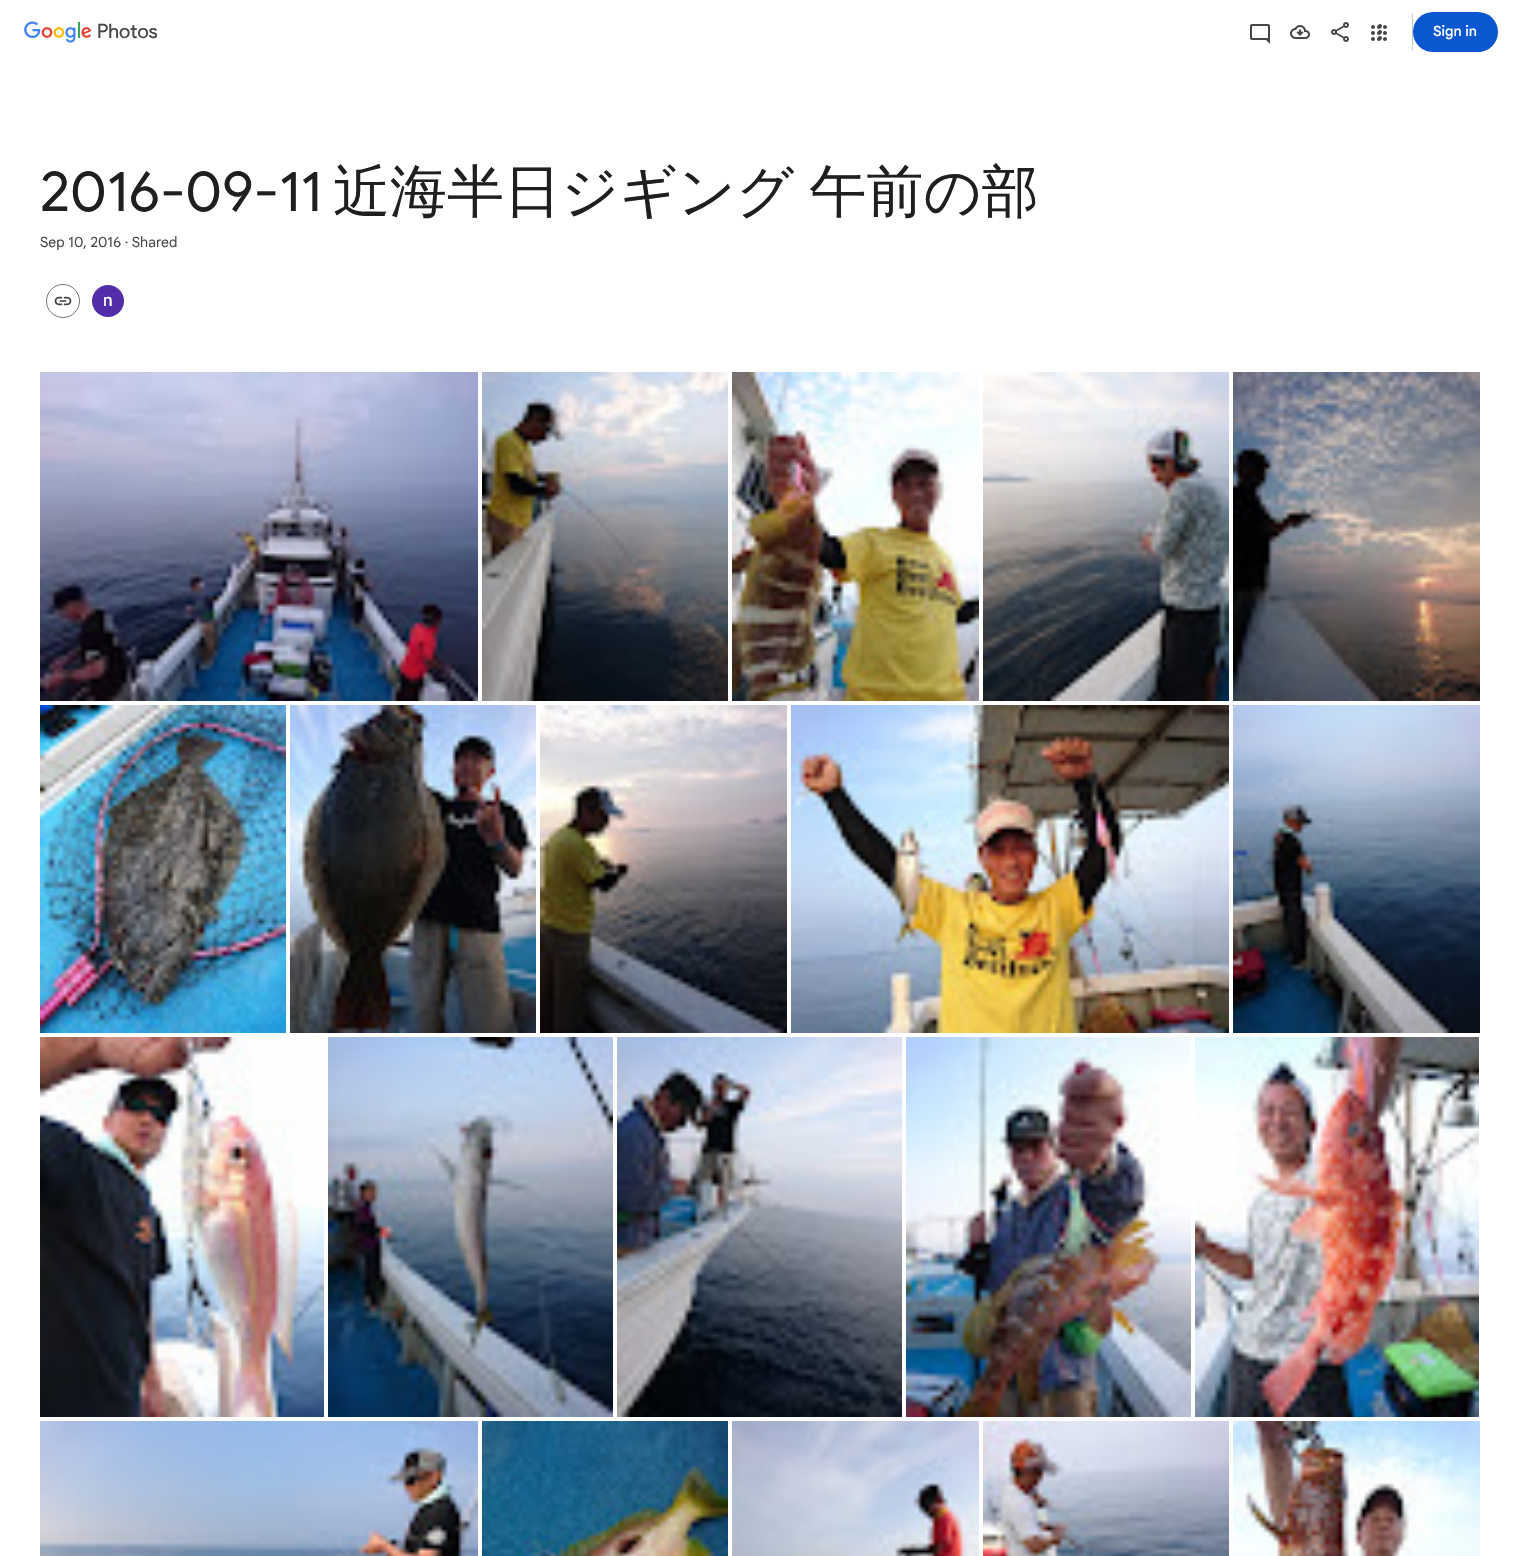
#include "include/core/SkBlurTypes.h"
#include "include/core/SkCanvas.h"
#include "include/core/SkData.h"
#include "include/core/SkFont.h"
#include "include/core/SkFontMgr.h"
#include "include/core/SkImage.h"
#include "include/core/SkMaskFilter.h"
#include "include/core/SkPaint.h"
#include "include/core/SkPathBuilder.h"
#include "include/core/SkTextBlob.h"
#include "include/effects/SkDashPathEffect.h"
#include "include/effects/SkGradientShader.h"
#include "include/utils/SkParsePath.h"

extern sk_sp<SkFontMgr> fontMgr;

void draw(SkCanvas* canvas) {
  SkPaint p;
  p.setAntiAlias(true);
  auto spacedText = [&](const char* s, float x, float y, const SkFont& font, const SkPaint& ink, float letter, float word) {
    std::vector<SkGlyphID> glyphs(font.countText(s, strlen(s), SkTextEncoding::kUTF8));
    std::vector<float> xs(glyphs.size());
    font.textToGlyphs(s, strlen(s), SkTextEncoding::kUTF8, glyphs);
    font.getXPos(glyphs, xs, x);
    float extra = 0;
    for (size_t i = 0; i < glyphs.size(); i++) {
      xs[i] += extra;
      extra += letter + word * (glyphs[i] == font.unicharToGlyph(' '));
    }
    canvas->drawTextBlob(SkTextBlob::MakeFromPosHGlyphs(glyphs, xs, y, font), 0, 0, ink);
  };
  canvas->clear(SK_ColorWHITE);
  canvas->drawImageRect(SkImages::DeferredFromEncodedData(SkData::MakeFromFileName("images/1.png")), SkRect::MakeLTRB(24, 21, 92, 43), SkSamplingOptions());
  canvas->drawImageRect(SkImages::DeferredFromEncodedData(SkData::MakeFromFileName("images/2.png")), SkRect::MakeLTRB(1250, 24, 1270, 44), SkSamplingOptions());
  canvas->drawImageRect(SkImages::DeferredFromEncodedData(SkData::MakeFromFileName("images/3.png")), SkRect::MakeLTRB(1290, 25, 1310, 39), SkSamplingOptions());
  canvas->drawImageRect(SkImages::DeferredFromEncodedData(SkData::MakeFromFileName("images/4.png")), SkRect::MakeLTRB(1331, 22, 1349, 42), SkSamplingOptions());
  canvas->drawImageRect(SkImages::DeferredFromEncodedData(SkData::MakeFromFileName("images/5.png")), SkRect::MakeLTRB(1378, 24, 1382, 40), SkSamplingOptions());
  p.setColor(SkColorSetRGB(196, 199, 197));
  canvas->drawRect(SkRect::MakeLTRB(1412, 14, 1413, 50), p);
  p.setStyle(SkPaint::kStroke_Style);
  p.setStrokeWidth(1);
  p.setColor(SkColorSetRGB(116, 119, 117));
  canvas->drawCircle(63, 301, 16.5f, p);
  canvas->drawImageRect(SkImages::DeferredFromEncodedData(SkData::MakeFromFileName("images/6.png")), SkRect::MakeLTRB(54, 296, 72, 306), SkSamplingOptions());
  canvas->drawImageRect(SkImages::DeferredFromEncodedData(SkData::MakeFromFileName("images/7.png")), SkRect::MakeLTRB(92, 285, 124, 317), SkSamplingOptions());
  canvas->drawImageRect(SkImages::DeferredFromEncodedData(SkData::MakeFromFileName("images/8.png")), SkRect::MakeLTRB(40, 372, 478, 701), SkSamplingOptions());
  canvas->drawImageRect(SkImages::DeferredFromEncodedData(SkData::MakeFromFileName("images/9.png")), SkRect::MakeLTRB(482, 372, 728, 701), SkSamplingOptions());
  canvas->drawImageRect(SkImages::DeferredFromEncodedData(SkData::MakeFromFileName("images/10.png")), SkRect::MakeLTRB(732, 372, 979, 701), SkSamplingOptions());
  canvas->drawImageRect(SkImages::DeferredFromEncodedData(SkData::MakeFromFileName("images/11.png")), SkRect::MakeLTRB(983, 372, 1229, 701), SkSamplingOptions());
  canvas->drawImageRect(SkImages::DeferredFromEncodedData(SkData::MakeFromFileName("images/12.png")), SkRect::MakeLTRB(1233, 372, 1480, 701), SkSamplingOptions());
  canvas->drawImageRect(SkImages::DeferredFromEncodedData(SkData::MakeFromFileName("images/13.png")), SkRect::MakeLTRB(40, 705, 286, 1033), SkSamplingOptions());
  canvas->drawImageRect(SkImages::DeferredFromEncodedData(SkData::MakeFromFileName("images/14.png")), SkRect::MakeLTRB(290, 705, 536, 1033), SkSamplingOptions());
  canvas->drawImageRect(SkImages::DeferredFromEncodedData(SkData::MakeFromFileName("images/15.png")), SkRect::MakeLTRB(540, 705, 787, 1033), SkSamplingOptions());
  canvas->drawImageRect(SkImages::DeferredFromEncodedData(SkData::MakeFromFileName("images/16.png")), SkRect::MakeLTRB(791, 705, 1229, 1033), SkSamplingOptions());
  canvas->drawImageRect(SkImages::DeferredFromEncodedData(SkData::MakeFromFileName("images/17.png")), SkRect::MakeLTRB(1233, 705, 1480, 1033), SkSamplingOptions());
  canvas->drawImageRect(SkImages::DeferredFromEncodedData(SkData::MakeFromFileName("images/18.png")), SkRect::MakeLTRB(40, 1037, 324, 1417), SkSamplingOptions());
  canvas->drawImageRect(SkImages::DeferredFromEncodedData(SkData::MakeFromFileName("images/19.png")), SkRect::MakeLTRB(328, 1037, 613, 1417), SkSamplingOptions());
  canvas->drawImageRect(SkImages::DeferredFromEncodedData(SkData::MakeFromFileName("images/20.png")), SkRect::MakeLTRB(617, 1037, 902, 1417), SkSamplingOptions());
  canvas->drawImageRect(SkImages::DeferredFromEncodedData(SkData::MakeFromFileName("images/21.png")), SkRect::MakeLTRB(906, 1037, 1191, 1417), SkSamplingOptions());
  canvas->drawImageRect(SkImages::DeferredFromEncodedData(SkData::MakeFromFileName("images/22.png")), SkRect::MakeLTRB(1195, 1037, 1479, 1417), SkSamplingOptions());
  canvas->drawImageRect(SkImages::DeferredFromEncodedData(SkData::MakeFromFileName("images/23.png")), SkRect::MakeLTRB(40, 1421, 478, 1556), SkSamplingOptions());
  canvas->drawImageRect(SkImages::DeferredFromEncodedData(SkData::MakeFromFileName("images/24.png")), SkRect::MakeLTRB(482, 1421, 728, 1556), SkSamplingOptions());
  canvas->drawImageRect(SkImages::DeferredFromEncodedData(SkData::MakeFromFileName("images/25.png")), SkRect::MakeLTRB(732, 1421, 979, 1556), SkSamplingOptions());
  canvas->drawImageRect(SkImages::DeferredFromEncodedData(SkData::MakeFromFileName("images/26.png")), SkRect::MakeLTRB(983, 1421, 1229, 1556), SkSamplingOptions());
  canvas->drawImageRect(SkImages::DeferredFromEncodedData(SkData::MakeFromFileName("images/27.png")), SkRect::MakeLTRB(1233, 1421, 1480, 1556), SkSamplingOptions());
  canvas->drawImageRect(SkImages::DeferredFromEncodedData(SkData::MakeFromFileName("images/28.png")), SkRect::MakeLTRB(1371, 25, 1387, 41), SkSamplingOptions());
  p.setStyle(SkPaint::kFill_Style);
  p.setColor(SkColorSetRGB(11, 87, 208));
  canvas->drawRoundRect(SkRect::MakeLTRB(1413, 12, 1498, 52), 20, 20, p);
  SkFont font1(fontMgr->matchFamilyStyle("Product Sans", SkFontStyle::Normal()), 20);
  font1.setSubpixel(true);
  p.setColor(SkColorSetRGB(68, 71, 70));
  canvas->drawString("Photos", 97, 38, font1, p);
  SkFont font2(fontMgr->matchFamilyStyle("Google Sans", SkFontStyle::Normal()), 57);
  font2.setSubpixel(true);
  p.setColor(SkColorSetRGB(31, 31, 31));
  canvas->drawString("2016-09-11", 40, 211, font2, p);
  SkFont font3(fontMgr->matchFamilyStyle("WenQuanYi Zen Hei", SkFontStyle(500, SkFontStyle::kNormal_Width, SkFontStyle::kUpright_Slant)), 57);
  font3.setSubpixel(true);
  spacedText("近海半日ジギング 午前の部", 333, 211, font3, p, 0, -2);
  SkFont font4(fontMgr->matchFamilyStyle("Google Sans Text", SkFontStyle::Normal()), 14);
  font4.setSubpixel(true);
  p.setColor(SkColorSetRGB(68, 71, 70));
  canvas->drawString("Sep 10, 2016 · Shared", 40, 247, font4, p);
  SkFont font5(fontMgr->matchFamilyStyle("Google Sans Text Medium", SkFontStyle(500, SkFontStyle::kNormal_Width, SkFontStyle::kUpright_Slant)), 14);
  font5.setSubpixel(true);
  p.setColor(SK_ColorWHITE);
  canvas->drawString("Sign in", 1433, 36, font5, p);
}
